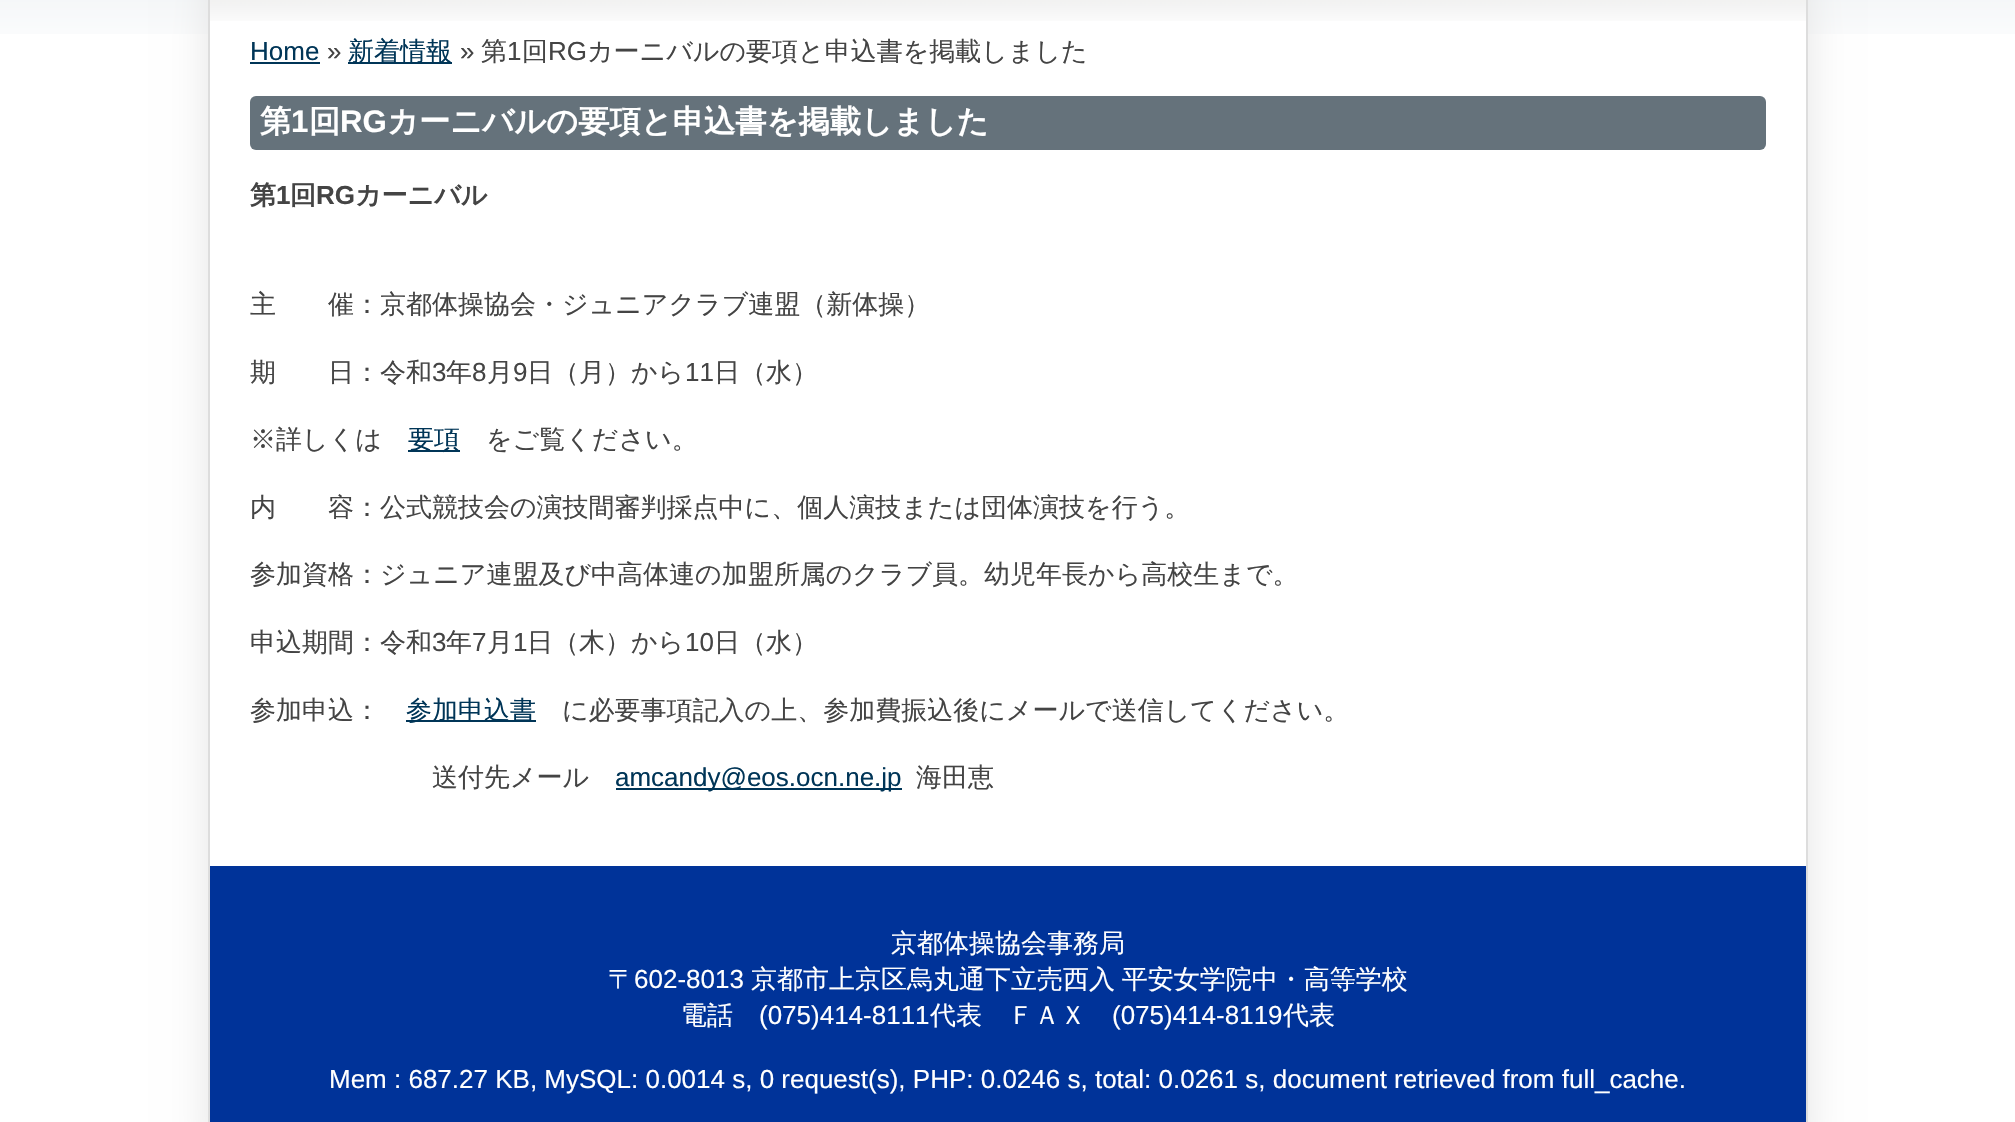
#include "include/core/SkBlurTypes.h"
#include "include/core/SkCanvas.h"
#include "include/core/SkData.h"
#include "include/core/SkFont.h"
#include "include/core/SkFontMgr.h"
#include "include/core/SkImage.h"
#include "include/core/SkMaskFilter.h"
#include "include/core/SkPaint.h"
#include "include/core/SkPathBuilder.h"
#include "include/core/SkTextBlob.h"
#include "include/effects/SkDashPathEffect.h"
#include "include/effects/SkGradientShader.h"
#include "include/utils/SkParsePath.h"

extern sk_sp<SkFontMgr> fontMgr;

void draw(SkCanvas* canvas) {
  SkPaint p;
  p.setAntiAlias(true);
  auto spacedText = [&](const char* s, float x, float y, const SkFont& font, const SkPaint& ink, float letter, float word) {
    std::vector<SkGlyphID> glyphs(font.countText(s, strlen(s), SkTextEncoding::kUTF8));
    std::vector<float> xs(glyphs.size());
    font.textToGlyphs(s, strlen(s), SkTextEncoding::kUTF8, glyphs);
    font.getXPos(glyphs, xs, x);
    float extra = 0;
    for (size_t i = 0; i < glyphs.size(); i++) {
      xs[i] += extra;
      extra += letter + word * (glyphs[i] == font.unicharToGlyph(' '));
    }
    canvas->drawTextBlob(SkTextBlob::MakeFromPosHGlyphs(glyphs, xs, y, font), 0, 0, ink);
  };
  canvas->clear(SK_ColorWHITE);
  canvas->drawImageRect(SkImages::DeferredFromEncodedData(SkData::MakeFromFileName("images/1.png")), SkRect::MakeLTRB(0, 0, 2015, 34), SkSamplingOptions());
  p.setColor(SkColorSetRGB(229, 229, 229));
  p.setMaskFilter(SkMaskFilter::MakeBlur(kNormal_SkBlurStyle, 20));
  canvas->drawRect(SkRect::MakeLTRB(208, -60, 1808, 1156), p);
  p.setMaskFilter(nullptr);
  p.setColor(SK_ColorWHITE);
  canvas->drawRect(SkRect::MakeLTRB(210, 21, 1806, 866), p);
  p.setStyle(SkPaint::kStroke_Style);
  p.setStrokeWidth(2);
  p.setColor(SkColorSetRGB(221, 221, 221));
  canvas->drawRect(SkRect::MakeLTRB(209, -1, 1807, 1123), p);
  canvas->drawImageRect(SkImages::DeferredFromEncodedData(SkData::MakeFromFileName("images/2.png")), SkRect::MakeLTRB(210, 0, 1806, 21), SkSamplingOptions());
  p.setStyle(SkPaint::kFill_Style);
  p.setColor(SkColorSetRGB(0, 53, 87));
  canvas->drawRect(SkRect::MakeLTRB(250, 62, 320, 64), p);
  canvas->drawRect(SkRect::MakeLTRB(348, 62, 452, 64), p);
  p.setColor(SkColorSetRGB(101, 114, 123));
  canvas->drawRoundRect(SkRect::MakeLTRB(250, 96, 1766, 150), 6, 6, p);
  p.setColor(SkColorSetRGB(0, 53, 87));
  canvas->drawRect(SkRect::MakeLTRB(408, 450, 460, 452), p);
  canvas->drawRect(SkRect::MakeLTRB(406, 720, 536, 722), p);
  canvas->drawRect(SkRect::MakeLTRB(616, 788, 902, 790), p);
  p.setColor(SkColorSetRGB(0, 51, 153));
  canvas->drawRect(SkRect::MakeLTRB(210, 866, 1806, 1122), p);
  SkFont font1(fontMgr->matchFamilyStyle("Liberation Sans", SkFontStyle::Normal()), 26);
  font1.setSubpixel(true);
  p.setColor(SkColorSetRGB(0, 53, 87));
  canvas->drawString("Home", 250, 60, font1, p);
  p.setColor(SkColorSetRGB(68, 68, 68));
  canvas->drawString("»", 327, 60, font1, p);
  SkFont font2(fontMgr->matchFamilyStyle("WenQuanYi Zen Hei", SkFontStyle(500, SkFontStyle::kNormal_Width, SkFontStyle::kUpright_Slant)), 26);
  font2.setSubpixel(true);
  p.setColor(SkColorSetRGB(0, 53, 87));
  canvas->drawString("新着情報", 348, 60, font2, p);
  p.setColor(SkColorSetRGB(68, 68, 68));
  canvas->drawString("»", 460, 60, font1, p);
  canvas->drawString("第", 481, 60, font2, p);
  canvas->drawString("1", 507, 60, font1, p);
  canvas->drawString("回", 522, 60, font2, p);
  canvas->drawString("RG", 548, 60, font1, p);
  canvas->drawString("カーニバルの要項と申込書を掲載しました", 587, 60, font2, p);
  SkFont font3(fontMgr->matchFamilyStyle("WenQuanYi Zen Hei", SkFontStyle::Bold()), 31.25f);
  font3.setSubpixel(true);
  p.setColor(SK_ColorWHITE);
  canvas->drawString("第", 260, 132, font3, p);
  SkFont font4(fontMgr->matchFamilyStyle("Liberation Sans", SkFontStyle::Bold()), 31.25f);
  font4.setSubpixel(true);
  canvas->drawString("1", 291, 132, font4, p);
  canvas->drawString("回", 309, 132, font3, p);
  canvas->drawString("RG", 340, 132, font4, p);
  canvas->drawString("カーニバルの要項と申込書を掲載しました", 387, 132, font3, p);
  SkFont font5(fontMgr->matchFamilyStyle("WenQuanYi Zen Hei", SkFontStyle::Bold()), 26);
  font5.setSubpixel(true);
  p.setColor(SkColorSetRGB(68, 68, 68));
  canvas->drawString("第", 250, 204, font5, p);
  SkFont font6(fontMgr->matchFamilyStyle("Liberation Sans", SkFontStyle::Bold()), 26);
  font6.setSubpixel(true);
  canvas->drawString("1", 276, 204, font6, p);
  canvas->drawString("回", 290, 204, font5, p);
  canvas->drawString("RG", 316, 204, font6, p);
  canvas->drawString("カーニバル", 355, 204, font5, p);
  canvas->drawString("主　　催：京都体操協会・ジュニアクラブ連盟（新体操）", 250, 313, font2, p);
  canvas->drawString("期　　日：令和", 250, 381, font2, p);
  canvas->drawString("3", 432, 381, font1, p);
  canvas->drawString("年", 446, 381, font2, p);
  canvas->drawString("8", 472, 381, font1, p);
  canvas->drawString("月", 487, 381, font2, p);
  canvas->drawString("9", 513, 381, font1, p);
  canvas->drawString("日（月）から", 527, 381, font2, p);
  canvas->drawString("11", 685, 381, font1, p);
  canvas->drawString("日（水）", 714, 381, font2, p);
  canvas->drawString("※詳しくは", 250, 448, font2, p);
  p.setColor(SkColorSetRGB(0, 53, 87));
  canvas->drawString("要項", 408, 448, font2, p);
  p.setColor(SkColorSetRGB(68, 68, 68));
  canvas->drawString("をご覧ください。", 486, 448, font2, p);
  canvas->drawString("内　　容：公式競技会の演技間審判採点中に、個人演技または団体演技を行う。", 250, 516, font2, p);
  canvas->drawString("参加資格：ジュニア連盟及び中高体連の加盟所属のクラブ員。幼児年長から高校生まで。", 250, 583, font2, p);
  canvas->drawString("申込期間：令和", 250, 651, font2, p);
  canvas->drawString("3", 432, 651, font1, p);
  canvas->drawString("年", 446, 651, font2, p);
  canvas->drawString("7", 472, 651, font1, p);
  canvas->drawString("月", 487, 651, font2, p);
  canvas->drawString("1", 513, 651, font1, p);
  canvas->drawString("日（木）から", 527, 651, font2, p);
  canvas->drawString("10", 685, 651, font1, p);
  canvas->drawString("日（水）", 714, 651, font2, p);
  canvas->drawString("参加申込：", 250, 719, font2, p);
  p.setColor(SkColorSetRGB(0, 53, 87));
  canvas->drawString("参加申込書", 406, 719, font2, p);
  p.setColor(SkColorSetRGB(68, 68, 68));
  canvas->drawString("に必要事項記入の上、参加費振込後にメールで送信してください。", 562, 719, font2, p);
  canvas->drawString("送付先メール", 432, 786, font2, p);
  p.setColor(SkColorSetRGB(0, 53, 87));
  canvas->drawString("amcandy@eos.ocn.ne.jp", 615, 786, font1, p);
  p.setColor(SkColorSetRGB(68, 68, 68));
  canvas->drawString("海田恵", 916, 786, font2, p);
  p.setColor(SK_ColorWHITE);
  canvas->drawString("京都体操協会事務局", 891, 952, font2, p);
  canvas->drawString("〒", 608, 988, font2, p);
  canvas->drawString("602-8013", 634, 988, font1, p);
  spacedText("京都市上京区烏丸通下立売西入 平安女学院中・高等学校", 751, 988, font2, p, 0, -1);
  canvas->drawString("電話", 681, 1024, font2, p);
  canvas->drawString("(075)414-8111", 759, 1024, font1, p);
  canvas->drawString("代表　ＦＡＸ", 930, 1024, font2, p);
  canvas->drawString("(075)414-8119", 1112, 1024, font1, p);
  canvas->drawString("代表", 1283, 1024, font2, p);
  canvas->drawString("Mem : 687.27 KB, MySQL: 0.0014 s, 0 request(s), PHP: 0.0246 s, total: 0.0261 s, document retrieved from full_cache.", 329, 1088, font1, p);
}
